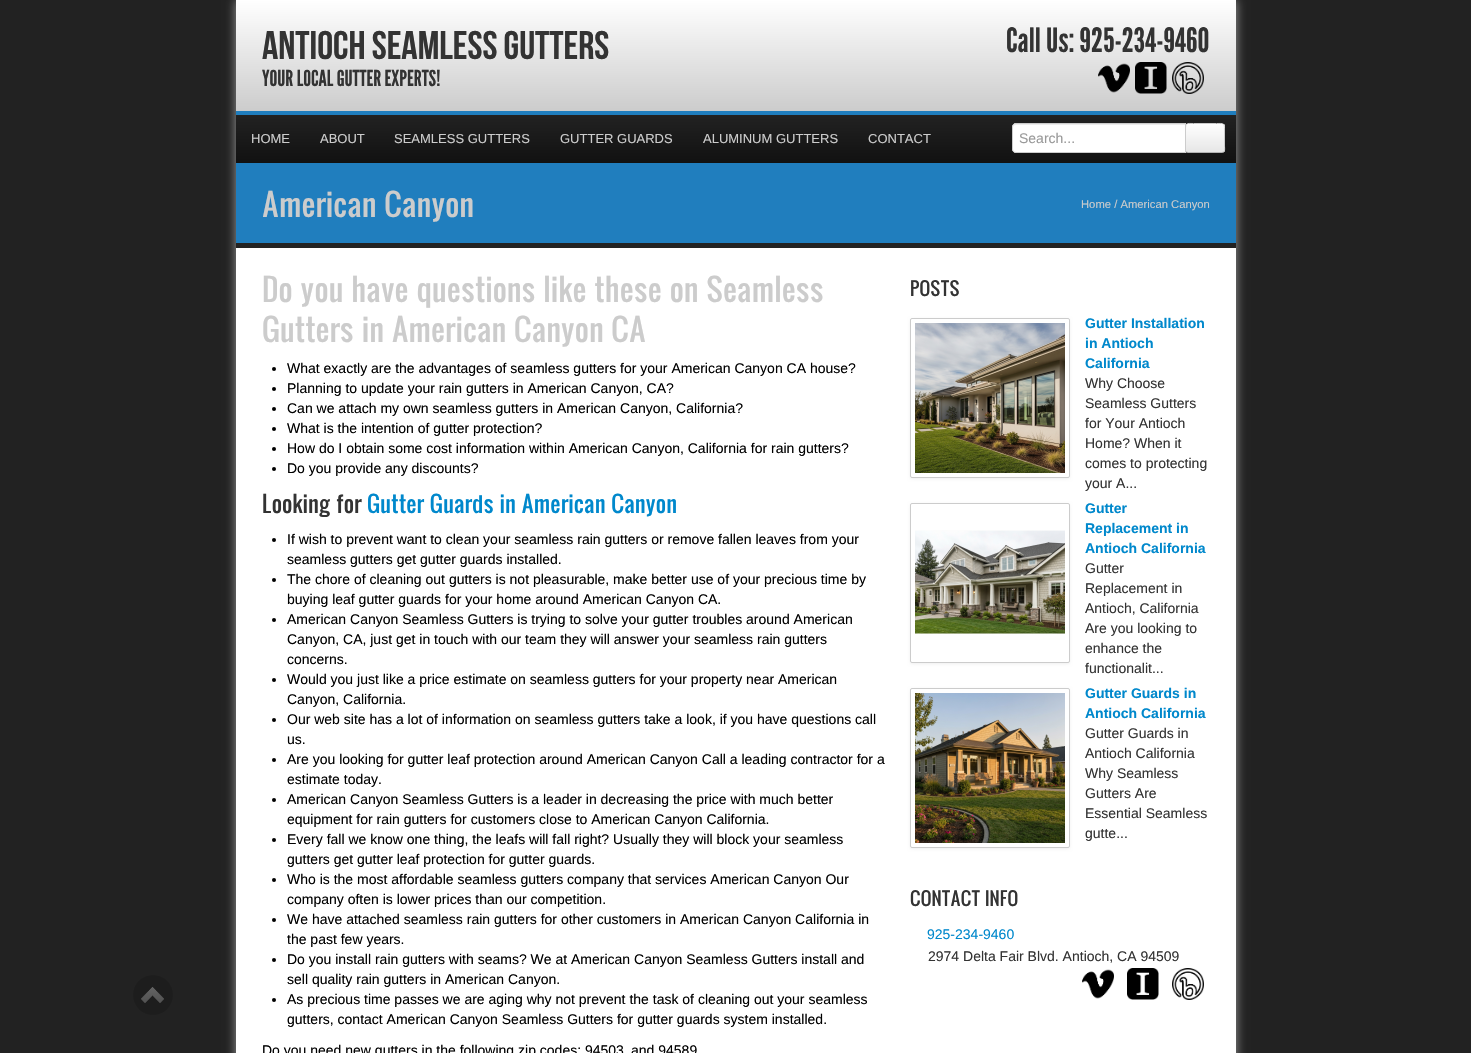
#include "include/core/SkBlurTypes.h"
#include "include/core/SkCanvas.h"
#include "include/core/SkData.h"
#include "include/core/SkFont.h"
#include "include/core/SkFontMgr.h"
#include "include/core/SkImage.h"
#include "include/core/SkMaskFilter.h"
#include "include/core/SkPaint.h"
#include "include/core/SkPathBuilder.h"
#include "include/core/SkTextBlob.h"
#include "include/effects/SkDashPathEffect.h"
#include "include/effects/SkGradientShader.h"
#include "include/utils/SkParsePath.h"

extern sk_sp<SkFontMgr> fontMgr;

void draw(SkCanvas* canvas) {
  SkPaint p;
  p.setAntiAlias(true);
  canvas->clear(SkColorSetRGB(34, 34, 34));
  p.setColor(SkColorSetRGB(153, 153, 153));
  p.setMaskFilter(SkMaskFilter::MakeBlur(kNormal_SkBlurStyle, 5));
  canvas->drawRect(SkRect::MakeLTRB(236, 0, 1236, 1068), p);
  p.setMaskFilter(nullptr);
  p.setColor(SK_ColorWHITE);
  canvas->drawRect(SkRect::MakeLTRB(236, 248, 1236, 1053), p);
  {
    const SkColor colors[] = {SK_ColorWHITE, SkColorSetRGB(204, 204, 204)};
    const float stops[] = {0, 1};
    const SkPoint ends[] = {{736, 0}, {736, 111}};
    p.setShader(SkGradientShader::MakeLinear(ends, colors, stops, 2, SkTileMode::kClamp));
    p.setAlpha(255);
  }
  canvas->drawRect(SkRect::MakeLTRB(236, 0, 1236, 111), p);
  canvas->drawImageRect(SkImages::DeferredFromEncodedData(SkData::MakeFromFileName("images/1.png")), SkRect::MakeLTRB(1098, 63, 1130, 93), SkSamplingOptions());
  canvas->drawImageRect(SkImages::DeferredFromEncodedData(SkData::MakeFromFileName("images/2.png")), SkRect::MakeLTRB(1135, 62, 1167, 94), SkSamplingOptions());
  canvas->drawImageRect(SkImages::DeferredFromEncodedData(SkData::MakeFromFileName("images/3.png")), SkRect::MakeLTRB(1172, 62, 1204, 94), SkSamplingOptions());
  {
    const SkColor colors[] = {SkColorSetRGB(34, 34, 34), SkColorSetRGB(17, 17, 17)};
    const float stops[] = {0, 1};
    const SkPoint ends[] = {{736, 115}, {736, 163}};
    p.setShader(SkGradientShader::MakeLinear(ends, colors, stops, 2, SkTileMode::kClamp));
    p.setAlpha(255);
  }
  canvas->drawRect(SkRect::MakeLTRB(236, 115, 1236, 163), p);
  p.setShader(nullptr);
  p.setColor(SkColorSetRGB(32, 126, 190));
  canvas->drawRect(SkRect::MakeLTRB(236, 111, 1236, 115), p);
  canvas->save();
  canvas->clipPath(SkPathBuilder().moveTo(1188, 123).lineTo(1222, 123).cubicTo(1223.5f, 123, 1225, 124.5f, 1225, 126).lineTo(1225, 150).cubicTo(1225, 151.5f, 1223.5f, 153, 1222, 153).lineTo(1188, 153).cubicTo(1186.5f, 153, 1185, 151.5f, 1185, 150).lineTo(1185, 126).cubicTo(1185, 124.5f, 1186.5f, 123, 1188, 123).close().detach(), true);
  {
    const SkColor colors[] = {SK_ColorWHITE, SkColorSetRGB(230, 230, 230)};
    const float stops[] = {0, 1};
    const SkPoint ends[] = {{1205, 124}, {1205, 152}};
    p.setShader(SkGradientShader::MakeLinear(ends, colors, stops, 2, SkTileMode::kClamp));
    p.setAlpha(255);
  }
  canvas->drawRect(SkRect::MakeLTRB(1186, 124, 1225, 152), p);
  canvas->restore();
  p.setStyle(SkPaint::kStroke_Style);
  p.setStrokeWidth(1);
  p.setShader(nullptr);
  p.setColor(SkColorSetRGB(179, 179, 179));
  canvas->drawPath(SkPathBuilder().moveTo(1224, 152).lineTo(1222, 152.5f).lineTo(1188, 152.5f).lineTo(1186, 152).detach(), p);
  p.setStyle(SkPaint::kFill_Style);
  p.setColor(SK_ColorWHITE);
  canvas->drawPath(SkPathBuilder().moveTo(1188, 125).lineTo(1222, 125).cubicTo(1223, 125, 1224, 126, 1224, 127).cubicTo(1224, 122.5f, 1220.5f, 124, 1216.5f, 124).lineTo(1193.5f, 124).cubicTo(1189.5f, 124, 1186, 122.5f, 1186, 127).cubicTo(1186, 126, 1187, 125, 1188, 125).close().detach(), p);
  p.setStyle(SkPaint::kStroke_Style);
  p.setColor(SkColorSetRGB(204, 204, 204));
  canvas->drawPath(SkPathBuilder().moveTo(1186, 152).cubicTo(1185, 150.5f, 1185.5f, 147.5f, 1185.5f, 146).lineTo(1185.5f, 130).cubicTo(1185.5f, 122.5f, 1186, 123.5f, 1193.5f, 123.5f).lineTo(1216.5f, 123.5f).cubicTo(1224, 123.5f, 1224.5f, 122.5f, 1224.5f, 130).lineTo(1224.5f, 146).cubicTo(1224.5f, 147.5f, 1225, 150.5f, 1224, 152).detach(), p);
  p.setStyle(SkPaint::kFill_Style);
  p.setColor(SK_ColorWHITE);
  canvas->drawPath(SkPathBuilder().moveTo(1016, 123).lineTo(1186, 123).lineTo(1186, 153).lineTo(1016, 153).cubicTo(1014, 153, 1012, 151, 1012, 149).lineTo(1012, 127).cubicTo(1012, 125, 1014, 123, 1016, 123).close().detach(), p);
  p.setColor(SkColorSetRGB(236, 236, 236));
  canvas->drawPath(SkPathBuilder().moveTo(1016, 125).lineTo(1185, 125).lineTo(1185, 124).lineTo(1016, 124).cubicTo(1014, 124, 1013, 126, 1013, 128).cubicTo(1013, 126, 1014, 125, 1016, 125).close().detach(), p);
  p.setStyle(SkPaint::kStroke_Style);
  p.setColor(SkColorSetRGB(204, 204, 204));
  canvas->drawPath(SkPathBuilder().moveTo(1016, 123.5f).lineTo(1185.5f, 123.5f).lineTo(1185.5f, 152.5f).lineTo(1016, 152.5f).cubicTo(1014, 152.5f, 1012.5f, 151, 1012.5f, 149).lineTo(1012.5f, 127).cubicTo(1012.5f, 125, 1014, 123.5f, 1016, 123.5f).close().detach(), p);
  p.setStyle(SkPaint::kFill_Style);
  p.setColor(SkColorSetRGB(32, 126, 190));
  canvas->drawRect(SkRect::MakeLTRB(236, 163, 1236, 243), p);
  p.setColor(SkColorSetRGB(34, 34, 34));
  canvas->drawRect(SkRect::MakeLTRB(236, 243, 1236, 248), p);
  p.setColor(SkColorSetRGB(29, 29, 29));
  canvas->drawCircle(153, 995, 20, p);
  canvas->drawImageRect(SkImages::DeferredFromEncodedData(SkData::MakeFromFileName("images/4.png")), SkRect::MakeLTRB(141, 987, 164, 1003), SkSamplingOptions());
  p.setColor(SK_ColorBLACK);
  canvas->drawCircle(274, 369, 2, p);
  canvas->drawCircle(274, 389, 2, p);
  canvas->drawCircle(274, 409, 2, p);
  canvas->drawCircle(274, 429, 2, p);
  canvas->drawCircle(274, 449, 2, p);
  canvas->drawCircle(274, 469, 2, p);
  canvas->drawCircle(274, 540, 2, p);
  canvas->drawCircle(274, 580, 2, p);
  canvas->drawCircle(274, 620, 2, p);
  canvas->drawCircle(274, 680, 2, p);
  canvas->drawCircle(274, 720, 2, p);
  canvas->drawCircle(274, 760, 2, p);
  canvas->drawCircle(274, 800, 2, p);
  canvas->drawCircle(274, 840, 2, p);
  canvas->drawCircle(274, 880, 2, p);
  canvas->drawCircle(274, 920, 2, p);
  canvas->drawCircle(274, 960, 2, p);
  canvas->drawCircle(274, 1000, 2, p);
  p.setColor(SkColorSetARGB(15, 0, 0, 0));
  p.setMaskFilter(SkMaskFilter::MakeBlur(kNormal_SkBlurStyle, 1.5f));
  canvas->drawRoundRect(SkRect::MakeLTRB(910, 319, 1070, 479), 2, 2, p);
  p.setMaskFilter(nullptr);
  p.setColor(SK_ColorWHITE);
  canvas->drawRoundRect(SkRect::MakeLTRB(910.5f, 318.5f, 1069.5f, 477.5f), 1.5f, 1.5f, p);
  p.setStyle(SkPaint::kStroke_Style);
  p.setColor(SkColorSetRGB(204, 204, 204));
  canvas->drawRoundRect(SkRect::MakeLTRB(910.5f, 318.5f, 1069.5f, 477.5f), 1.5f, 1.5f, p);
  canvas->drawImageRect(SkImages::DeferredFromEncodedData(SkData::MakeFromFileName("images/5.png")), SkRect::MakeLTRB(915, 323, 1065, 473), SkSamplingOptions());
  p.setStyle(SkPaint::kFill_Style);
  p.setColor(SkColorSetARGB(15, 0, 0, 0));
  p.setMaskFilter(SkMaskFilter::MakeBlur(kNormal_SkBlurStyle, 1.5f));
  canvas->drawRoundRect(SkRect::MakeLTRB(910, 504, 1070, 664), 2, 2, p);
  p.setMaskFilter(nullptr);
  p.setColor(SK_ColorWHITE);
  canvas->drawRoundRect(SkRect::MakeLTRB(910.5f, 503.5f, 1069.5f, 662.5f), 1.5f, 1.5f, p);
  p.setStyle(SkPaint::kStroke_Style);
  p.setColor(SkColorSetRGB(204, 204, 204));
  canvas->drawRoundRect(SkRect::MakeLTRB(910.5f, 503.5f, 1069.5f, 662.5f), 1.5f, 1.5f, p);
  canvas->drawImageRect(SkImages::DeferredFromEncodedData(SkData::MakeFromFileName("images/6.png")), SkRect::MakeLTRB(915, 530, 1065, 640), SkSamplingOptions());
  p.setStyle(SkPaint::kFill_Style);
  p.setColor(SkColorSetARGB(15, 0, 0, 0));
  p.setMaskFilter(SkMaskFilter::MakeBlur(kNormal_SkBlurStyle, 1.5f));
  canvas->drawRoundRect(SkRect::MakeLTRB(910, 689, 1070, 849), 2, 2, p);
  p.setMaskFilter(nullptr);
  p.setColor(SK_ColorWHITE);
  canvas->drawRoundRect(SkRect::MakeLTRB(910.5f, 688.5f, 1069.5f, 847.5f), 1.5f, 1.5f, p);
  p.setStyle(SkPaint::kStroke_Style);
  p.setColor(SkColorSetRGB(204, 204, 204));
  canvas->drawRoundRect(SkRect::MakeLTRB(910.5f, 688.5f, 1069.5f, 847.5f), 1.5f, 1.5f, p);
  canvas->drawImageRect(SkImages::DeferredFromEncodedData(SkData::MakeFromFileName("images/7.png")), SkRect::MakeLTRB(915, 693, 1065, 843), SkSamplingOptions());
  canvas->drawImageRect(SkImages::DeferredFromEncodedData(SkData::MakeFromFileName("images/8.png")), SkRect::MakeLTRB(1082, 969, 1114, 999), SkSamplingOptions());
  canvas->drawImageRect(SkImages::DeferredFromEncodedData(SkData::MakeFromFileName("images/9.png")), SkRect::MakeLTRB(1127, 968, 1159, 1000), SkSamplingOptions());
  canvas->drawImageRect(SkImages::DeferredFromEncodedData(SkData::MakeFromFileName("images/10.png")), SkRect::MakeLTRB(1172, 968, 1204, 1000), SkSamplingOptions());
  SkFont font1(fontMgr->matchFamilyStyle("Bebas Neue", SkFontStyle::Normal()), 40);
  font1.setSubpixel(true);
  p.setStyle(SkPaint::kFill_Style);
  p.setColor(SkColorSetRGB(51, 51, 51));
  canvas->drawString("ANTIOCH SEAMLESS GUTTERS", 262, 59, font1, p);
  SkFont font2(fontMgr->matchFamilyStyle("League Gothic", SkFontStyle::Normal()), 22);
  font2.setSubpixel(true);
  canvas->drawString("YOUR LOCAL GUTTER EXPERTS!", 262, 86, font2, p);
  SkFont font3(fontMgr->matchFamilyStyle("League Gothic", SkFontStyle::Normal()), 33.5f);
  font3.setSubpixel(true);
  canvas->drawString("Call Us: 925-234-9460", 1006, 52, font3, p);
  SkFont font4(fontMgr->matchFamilyStyle("Liberation Sans", SkFontStyle::Normal()), 13);
  font4.setSubpixel(true);
  p.setColor(SkColorSetRGB(204, 204, 204));
  canvas->drawString("HOME", 251, 143, font4, p);
  canvas->drawString("ABOUT", 320, 143, font4, p);
  canvas->drawString("SEAMLESS GUTTERS", 394, 143, font4, p);
  canvas->drawString("GUTTER GUARDS", 560, 143, font4, p);
  canvas->drawString("ALUMINUM GUTTERS", 703, 143, font4, p);
  canvas->drawString("CONTACT", 868, 143, font4, p);
  SkFont font5(fontMgr->matchFamilyStyle("Liberation Sans", SkFontStyle::Normal()), 14);
  font5.setSubpixel(true);
  p.setColor(SkColorSetRGB(153, 153, 153));
  canvas->drawString("Search...", 1019, 143, font5, p);
  SkFont font6(fontMgr->matchFamilyStyle("Oswald", SkFontStyle::Normal()), 30);
  font6.setSubpixel(true);
  p.setColor(SkColorSetRGB(204, 204, 204));
  canvas->drawString("American Canyon", 262, 217, font6, p);
  SkFont font7(fontMgr->matchFamilyStyle("Liberation Sans", SkFontStyle::Normal()), 11.25f);
  font7.setSubpixel(true);
  canvas->drawString("Home / American Canyon", 1081, 208, font7, p);
  canvas->drawString("Do you have questions like these on Seamless", 262, 302, font6, p);
  canvas->drawString("Gutters in American Canyon CA", 262, 342, font6, p);
  p.setColor(SK_ColorBLACK);
  canvas->drawString("What exactly are the advantages of seamless gutters for your American Canyon CA house?", 287, 373, font5, p);
  canvas->drawString("Planning to update your rain gutters in American Canyon, CA?", 287, 393, font5, p);
  canvas->drawString("Can we attach my own seamless gutters in American Canyon, California?", 287, 413, font5, p);
  canvas->drawString("What is the intention of gutter protection?", 287, 433, font5, p);
  canvas->drawString("How do I obtain some cost information within American Canyon, California for rain gutters?", 287, 453, font5, p);
  canvas->drawString("Do you provide any discounts?", 287, 473, font5, p);
  SkFont font8(fontMgr->matchFamilyStyle("Oswald", SkFontStyle::Normal()), 22);
  font8.setSubpixel(true);
  p.setColor(SkColorSetRGB(51, 51, 51));
  canvas->drawString("Looking for", 262, 513, font8, p);
  p.setColor(SkColorSetRGB(0, 136, 204));
  canvas->drawString("Gutter Guards in American Canyon", 367, 513, font8, p);
  p.setColor(SK_ColorBLACK);
  canvas->drawString("If wish to prevent want to clean your seamless rain gutters or remove fallen leaves from your", 287, 544, font5, p);
  canvas->drawString("seamless gutters get gutter guards installed.", 287, 564, font5, p);
  canvas->drawString("The chore of cleaning out gutters is not pleasurable, make better use of your precious time by", 287, 584, font5, p);
  canvas->drawString("buying leaf gutter guards for your home around American Canyon CA.", 287, 604, font5, p);
  canvas->drawString("American Canyon Seamless Gutters is trying to solve your gutter troubles around American", 287, 624, font5, p);
  canvas->drawString("Canyon, CA, just get in touch with our team they will answer your seamless rain gutters", 287, 644, font5, p);
  canvas->drawString("concerns.", 287, 664, font5, p);
  canvas->drawString("Would you just like a price estimate on seamless gutters for your property near American", 287, 684, font5, p);
  canvas->drawString("Canyon, California.", 287, 704, font5, p);
  canvas->drawString("Our web site has a lot of information on seamless gutters take a look, if you have questions call", 287, 724, font5, p);
  canvas->drawString("us.", 287, 744, font5, p);
  canvas->drawString("Are you looking for gutter leaf protection around American Canyon Call a leading contractor for a", 287, 764, font5, p);
  canvas->drawString("estimate today.", 287, 784, font5, p);
  canvas->drawString("American Canyon Seamless Gutters is a leader in decreasing the price with much better", 287, 804, font5, p);
  canvas->drawString("equipment for rain gutters for customers close to American Canyon California.", 287, 824, font5, p);
  canvas->drawString("Every fall we know one thing, the leafs will fall right? Usually they will block your seamless", 287, 844, font5, p);
  canvas->drawString("gutters get gutter leaf protection for gutter guards.", 287, 864, font5, p);
  canvas->drawString("Who is the most affordable seamless gutters company that services American Canyon Our", 287, 884, font5, p);
  canvas->drawString("company often is lower prices than our competition.", 287, 904, font5, p);
  canvas->drawString("We have attached seamless rain gutters for other customers in American Canyon California in", 287, 924, font5, p);
  canvas->drawString("the past few years.", 287, 944, font5, p);
  canvas->drawString("Do you install rain gutters with seams? We at American Canyon Seamless Gutters install and", 287, 964, font5, p);
  canvas->drawString("sell quality rain gutters in American Canyon.", 287, 984, font5, p);
  canvas->drawString("As precious time passes we are aging why not prevent the task of cleaning out your seamless", 287, 1004, font5, p);
  canvas->drawString("gutters, contact American Canyon Seamless Gutters for gutter guards system installed.", 287, 1024, font5, p);
  canvas->drawString("Do you need new gutters in the following zip codes: 94503", 262, 1055, font5, p);
  canvas->drawString("and 94589", 631, 1055, font5, p);
  SkFont font9(fontMgr->matchFamilyStyle("Oswald", SkFontStyle::Normal()), 18);
  font9.setSubpixel(true);
  p.setColor(SkColorSetRGB(51, 51, 51));
  canvas->drawString("POSTS", 910, 296, font9, p);
  SkFont font10(fontMgr->matchFamilyStyle("Liberation Sans", SkFontStyle::Bold()), 14);
  font10.setSubpixel(true);
  p.setColor(SkColorSetRGB(0, 136, 204));
  canvas->drawString("Gutter Installation", 1085, 328, font10, p);
  canvas->drawString("in Antioch", 1085, 348, font10, p);
  canvas->drawString("California", 1085, 368, font10, p);
  p.setColor(SkColorSetRGB(51, 51, 51));
  canvas->drawString("Why Choose", 1085, 388, font5, p);
  canvas->drawString("Seamless Gutters", 1085, 408, font5, p);
  canvas->drawString("for Your Antioch", 1085, 428, font5, p);
  canvas->drawString("Home? When it", 1085, 448, font5, p);
  canvas->drawString("comes to protecting", 1085, 468, font5, p);
  canvas->drawString("your A...", 1085, 488, font5, p);
  p.setColor(SkColorSetRGB(0, 136, 204));
  canvas->drawString("Gutter", 1085, 513, font10, p);
  canvas->drawString("Replacement in", 1085, 533, font10, p);
  canvas->drawString("Antioch California", 1085, 553, font10, p);
  p.setColor(SkColorSetRGB(51, 51, 51));
  canvas->drawString("Gutter", 1085, 573, font5, p);
  canvas->drawString("Replacement in", 1085, 593, font5, p);
  canvas->drawString("Antioch, California", 1085, 613, font5, p);
  canvas->drawString("Are you looking to", 1085, 633, font5, p);
  canvas->drawString("enhance the", 1085, 653, font5, p);
  canvas->drawString("functionalit...", 1085, 673, font5, p);
  p.setColor(SkColorSetRGB(0, 136, 204));
  canvas->drawString("Gutter Guards in", 1085, 698, font10, p);
  canvas->drawString("Antioch California", 1085, 718, font10, p);
  p.setColor(SkColorSetRGB(51, 51, 51));
  canvas->drawString("Gutter Guards in", 1085, 738, font5, p);
  canvas->drawString("Antioch California", 1085, 758, font5, p);
  canvas->drawString("Why Seamless", 1085, 778, font5, p);
  canvas->drawString("Gutters Are", 1085, 798, font5, p);
  canvas->drawString("Essential Seamless", 1085, 818, font5, p);
  canvas->drawString("gutte...", 1085, 838, font5, p);
  canvas->drawString("CONTACT INFO", 910, 906, font9, p);
  p.setColor(SkColorSetRGB(0, 136, 204));
  canvas->drawString("925-234-9460", 927, 939, font5, p);
  p.setColor(SkColorSetRGB(51, 51, 51));
  canvas->drawString("2974 Delta Fair Blvd. Antioch, CA 94509", 928, 961, font5, p);
}
